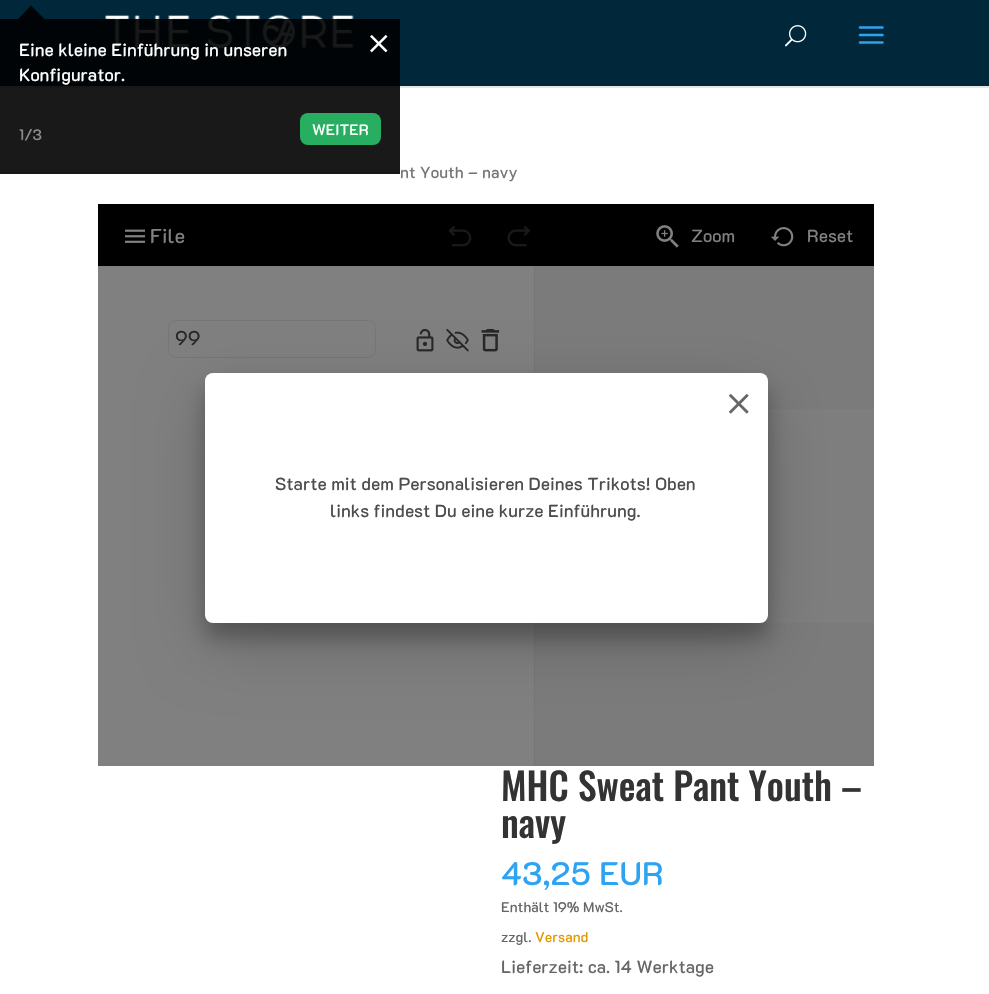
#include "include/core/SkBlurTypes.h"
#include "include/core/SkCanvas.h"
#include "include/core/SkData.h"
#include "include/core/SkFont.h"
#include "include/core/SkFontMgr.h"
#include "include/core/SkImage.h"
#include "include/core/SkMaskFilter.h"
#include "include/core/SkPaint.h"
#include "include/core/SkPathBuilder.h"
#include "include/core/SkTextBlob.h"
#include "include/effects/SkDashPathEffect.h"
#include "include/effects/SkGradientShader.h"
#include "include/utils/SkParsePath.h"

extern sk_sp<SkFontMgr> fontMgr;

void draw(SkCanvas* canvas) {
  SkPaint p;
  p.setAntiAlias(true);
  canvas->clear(SK_ColorWHITE);
  p.setColor(SkColorSetRGB(128, 128, 128));
  canvas->drawRect(SkRect::MakeLTRB(98, 266, 534, 766), p);
  p.setColor(SkColorSetRGB(230, 230, 230));
  canvas->drawRect(SkRect::MakeLTRB(0, 86, 989, 88), p);
  p.setColor(SkColorSetRGB(0, 40, 58));
  canvas->drawRect(SkRect::MakeLTRB(0, 0, 989, 86), p);
  canvas->drawImageRect(SkImages::DeferredFromEncodedData(SkData::MakeFromFileName("images/2.png")), SkRect::MakeLTRB(105, 14, 354, 48), SkSamplingOptions());
  p.setColor(SkColorSetARGB(230, 0, 0, 0));
  canvas->drawRect(SkRect::MakeLTRB(0, 19, 400, 174), p);
  p.setColor(SkColorSetRGB(0, 4, 6));
  canvas->drawPath(SkPathBuilder().moveTo(18, 19).lineTo(44.5f, 19).lineTo(31, 5.5f).close().detach(), p);
  canvas->drawImageRect(SkImages::DeferredFromEncodedData(SkData::MakeFromFileName("images/1.png")), SkRect::MakeLTRB(370, 34, 388, 53), SkSamplingOptions());
  p.setColor(SkColorSetRGB(39, 174, 96));
  canvas->drawRoundRect(SkRect::MakeLTRB(300, 113, 381, 145), 8, 8, p);
  canvas->drawImageRect(SkImages::DeferredFromEncodedData(SkData::MakeFromFileName("images/3.png")), SkRect::MakeLTRB(785, 25, 807, 47), SkSamplingOptions());
  canvas->drawImageRect(SkImages::DeferredFromEncodedData(SkData::MakeFromFileName("images/4.png")), SkRect::MakeLTRB(858, 26, 884, 44), SkSamplingOptions());
  p.setColor(SK_ColorBLACK);
  canvas->drawRect(SkRect::MakeLTRB(98, 204, 874, 266), p);
  canvas->drawImageRect(SkImages::DeferredFromEncodedData(SkData::MakeFromFileName("images/5.png")), SkRect::MakeLTRB(125, 229, 145, 243), SkSamplingOptions());
  canvas->drawImageRect(SkImages::DeferredFromEncodedData(SkData::MakeFromFileName("images/6.png")), SkRect::MakeLTRB(448, 226, 472, 247), SkSamplingOptions());
  canvas->drawImageRect(SkImages::DeferredFromEncodedData(SkData::MakeFromFileName("images/7.png")), SkRect::MakeLTRB(507, 226, 530, 247), SkSamplingOptions());
  canvas->drawImageRect(SkImages::DeferredFromEncodedData(SkData::MakeFromFileName("images/8.png")), SkRect::MakeLTRB(656, 225, 679, 248), SkSamplingOptions());
  canvas->drawImageRect(SkImages::DeferredFromEncodedData(SkData::MakeFromFileName("images/9.png")), SkRect::MakeLTRB(770, 227, 794, 247), SkSamplingOptions());
  p.setColor(SkColorSetRGB(118, 118, 118));
  canvas->drawRect(SkRect::MakeLTRB(534, 266, 535, 766), p);
  p.setStyle(SkPaint::kStroke_Style);
  p.setStrokeWidth(1);
  canvas->drawRoundRect(SkRect::MakeLTRB(168.5f, 320.5f, 375.5f, 357.5f), 7.5f, 7.5f, p);
  canvas->drawImageRect(SkImages::DeferredFromEncodedData(SkData::MakeFromFileName("images/10.png")), SkRect::MakeLTRB(416, 328, 434, 352), SkSamplingOptions());
  canvas->drawImageRect(SkImages::DeferredFromEncodedData(SkData::MakeFromFileName("images/11.png")), SkRect::MakeLTRB(446, 329, 469, 352), SkSamplingOptions());
  canvas->drawImageRect(SkImages::DeferredFromEncodedData(SkData::MakeFromFileName("images/12.png")), SkRect::MakeLTRB(481, 328, 500, 352), SkSamplingOptions());
  p.setStyle(SkPaint::kFill_Style);
  p.setColor(SkColorSetRGB(123, 123, 123));
  canvas->drawRect(SkRect::MakeLTRB(535, 266, 874, 766), p);
  p.setColor(SkColorSetRGB(126, 126, 126));
  canvas->drawRect(SkRect::MakeLTRB(760, 409, 874, 623), p);
  p.setColor(SkColorSetARGB(48, 0, 0, 0));
  p.setMaskFilter(SkMaskFilter::MakeBlur(kNormal_SkBlurStyle, 31));
  canvas->drawRoundRect(SkRect::MakeLTRB(205, 394, 768, 644), 8, 8, p);
  p.setMaskFilter(nullptr);
  p.setColor(SkColorSetARGB(61, 0, 0, 0));
  p.setMaskFilter(SkMaskFilter::MakeBlur(kNormal_SkBlurStyle, 9.5f));
  canvas->drawRoundRect(SkRect::MakeLTRB(205, 388, 768, 638), 8, 8, p);
  p.setMaskFilter(nullptr);
  p.setColor(SK_ColorWHITE);
  canvas->drawRoundRect(SkRect::MakeLTRB(205, 373, 768, 623), 8, 8, p);
  canvas->drawImageRect(SkImages::DeferredFromEncodedData(SkData::MakeFromFileName("images/13.png")), SkRect::MakeLTRB(728, 393, 749, 414), SkSamplingOptions());
  SkFont font1(fontMgr->matchFamilyStyle("K2D", SkFontStyle(500, SkFontStyle::kNormal_Width, SkFontStyle::kUpright_Slant)), 17.5f);
  font1.setSubpixel(true);
  canvas->drawString("Eine kleine Einführung in unseren", 19, 56, font1, p);
  canvas->drawString("Konfigurator.", 19, 81, font1, p);
  SkFont font2(fontMgr->matchFamilyStyle("K2D", SkFontStyle(500, SkFontStyle::kNormal_Width, SkFontStyle::kUpright_Slant)), 15);
  font2.setSubpixel(true);
  p.setColor(SkColorSetRGB(140, 140, 140));
  canvas->drawString("1/3", 19, 140, font2, p);
  p.setColor(SK_ColorWHITE);
  canvas->drawString("WEITER", 312, 135, font2, p);
  SkFont font3(fontMgr->matchFamilyStyle("K2D", SkFontStyle(500, SkFontStyle::kNormal_Width, SkFontStyle::kUpright_Slant)), 16);
  font3.setSubpixel(true);
  p.setColor(SkColorSetRGB(118, 118, 118));
  canvas->drawString("nt Youth – navy", 400, 178, font3, p);
  SkFont font4(fontMgr->matchFamilyStyle("K2D", SkFontStyle(500, SkFontStyle::kNormal_Width, SkFontStyle::kUpright_Slant)), 20);
  font4.setSubpixel(true);
  p.setColor(SkColorSetRGB(128, 128, 128));
  canvas->drawString("File", 150, 243, font4, p);
  canvas->drawString("Zoom", 691, 242, font1, p);
  canvas->drawString("Reset", 807, 242, font1, p);
  SkFont font5(fontMgr->matchFamilyStyle("K2D", SkFontStyle::Normal()), 20);
  font5.setSubpixel(true);
  p.setColor(SkColorSetRGB(39, 39, 39));
  canvas->drawString("99", 175, 345, font5, p);
  p.setColor(SkColorSetRGB(77, 77, 77));
  canvas->drawString("Starte mit dem Personalisieren Deines Trikots! Oben", 275, 490, font1, p);
  canvas->drawString("links findest Du eine kurze Einführung.", 330, 517, font1, p);
  SkFont font6(fontMgr->matchFamilyStyle("Oswald", SkFontStyle(500, SkFontStyle::kNormal_Width, SkFontStyle::kUpright_Slant)), 37.5f);
  font6.setSubpixel(true);
  p.setColor(SkColorSetRGB(51, 51, 51));
  canvas->drawString("MHC Sweat Pant Youth –", 501, 801, font6, p);
  canvas->drawString("navy", 501, 838, font6, p);
  SkFont font7(fontMgr->matchFamilyStyle("K2D", SkFontStyle(500, SkFontStyle::kNormal_Width, SkFontStyle::kUpright_Slant)), 32.5f);
  font7.setSubpixel(true);
  p.setColor(SkColorSetRGB(46, 163, 242));
  canvas->drawString("43,25 EUR", 501, 885, font7, p);
  SkFont font8(fontMgr->matchFamilyStyle("K2D", SkFontStyle(500, SkFontStyle::kNormal_Width, SkFontStyle::kUpright_Slant)), 14);
  font8.setSubpixel(true);
  p.setColor(SkColorSetRGB(102, 102, 102));
  canvas->drawString("Enthält 19% MwSt.", 501, 912, font8, p);
  canvas->drawString("zzgl.", 501, 942, font8, p);
  p.setColor(SkColorSetRGB(224, 153, 0));
  canvas->drawString("Versand", 535, 942, font8, p);
  p.setColor(SkColorSetRGB(102, 102, 102));
  canvas->drawString("Lieferzeit: ca. 14 Werktage", 501, 973, font1, p);
}
